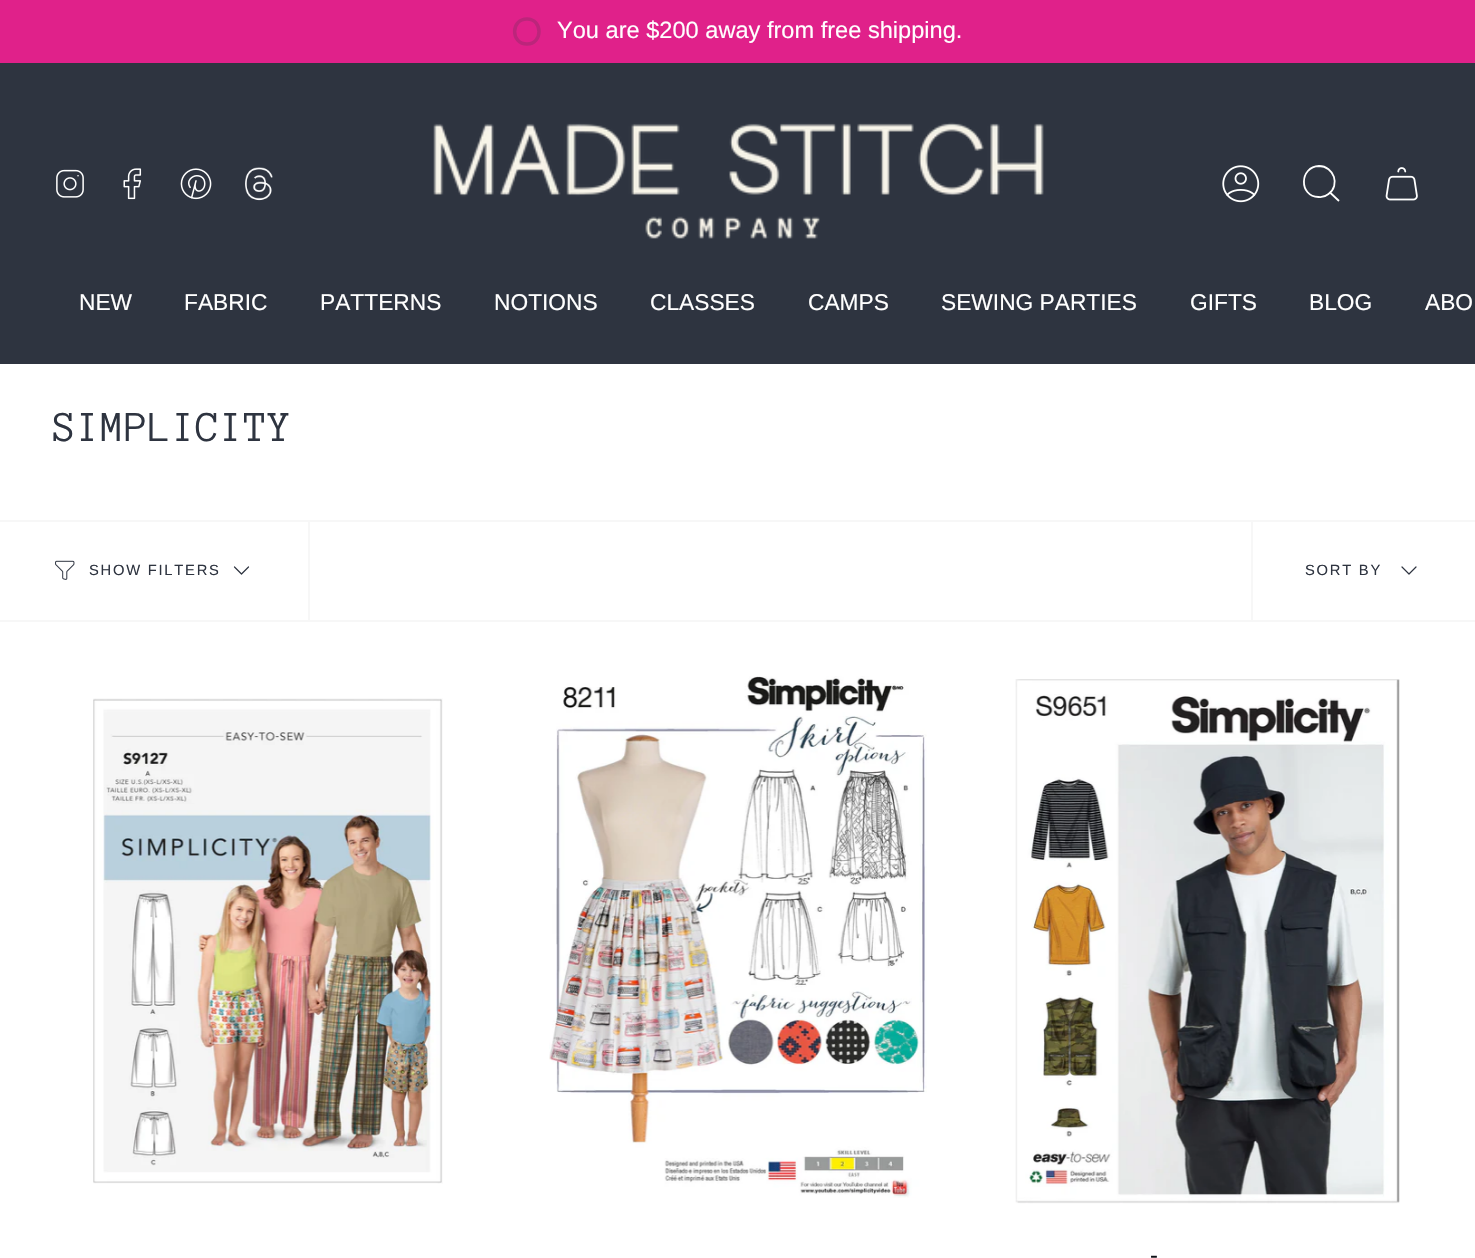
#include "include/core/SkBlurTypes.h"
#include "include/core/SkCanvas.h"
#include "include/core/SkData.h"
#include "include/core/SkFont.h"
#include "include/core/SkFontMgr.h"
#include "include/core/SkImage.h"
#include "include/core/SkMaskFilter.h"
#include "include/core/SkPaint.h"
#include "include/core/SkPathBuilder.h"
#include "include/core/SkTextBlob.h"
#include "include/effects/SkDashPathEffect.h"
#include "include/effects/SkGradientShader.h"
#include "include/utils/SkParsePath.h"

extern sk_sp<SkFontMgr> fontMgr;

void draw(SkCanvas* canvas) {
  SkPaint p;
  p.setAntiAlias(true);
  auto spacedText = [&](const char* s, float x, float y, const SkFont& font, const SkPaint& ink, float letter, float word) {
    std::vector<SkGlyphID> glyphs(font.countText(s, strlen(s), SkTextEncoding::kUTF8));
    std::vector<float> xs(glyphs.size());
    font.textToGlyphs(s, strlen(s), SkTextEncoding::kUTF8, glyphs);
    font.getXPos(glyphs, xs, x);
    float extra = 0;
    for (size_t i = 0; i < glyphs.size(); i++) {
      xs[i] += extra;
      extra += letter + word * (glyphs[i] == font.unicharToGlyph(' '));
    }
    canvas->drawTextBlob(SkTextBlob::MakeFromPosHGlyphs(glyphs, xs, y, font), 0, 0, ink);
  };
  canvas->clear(SK_ColorWHITE);
  p.setColor(SkColorSetRGB(224, 33, 138));
  canvas->drawRect(SkRect::MakeLTRB(0, 0, 1475, 63), p);
  p.setStyle(SkPaint::kStroke_Style);
  p.setStrokeWidth(3.5f);
  p.setColor(SkColorSetRGB(188, 37, 123));
  canvas->drawPath(SkPathBuilder().moveTo(527, 19).cubicTo(510.5f, 19, 510.5f, 44, 527, 44).cubicTo(543, 44, 543, 19, 527, 19).close().detach(), p);
  p.setStyle(SkPaint::kFill_Style);
  p.setColor(SkColorSetRGB(46, 52, 64));
  canvas->drawRect(SkRect::MakeLTRB(0, 63, 1475, 364), p);
  canvas->drawImageRect(SkImages::DeferredFromEncodedData(SkData::MakeFromFileName("images/1.png")), SkRect::MakeLTRB(56, 169, 84, 198), SkSamplingOptions());
  canvas->drawImageRect(SkImages::DeferredFromEncodedData(SkData::MakeFromFileName("images/2.png")), SkRect::MakeLTRB(123, 168, 142, 200), SkSamplingOptions());
  canvas->drawImageRect(SkImages::DeferredFromEncodedData(SkData::MakeFromFileName("images/3.png")), SkRect::MakeLTRB(180, 168, 212, 200), SkSamplingOptions());
  canvas->drawImageRect(SkImages::DeferredFromEncodedData(SkData::MakeFromFileName("images/4.png")), SkRect::MakeLTRB(245, 167, 273, 201), SkSamplingOptions());
  canvas->drawImageRect(SkImages::DeferredFromEncodedData(SkData::MakeFromFileName("images/5.png")), SkRect::MakeLTRB(433, 122, 1044, 239), SkSamplingOptions());
  canvas->drawImageRect(SkImages::DeferredFromEncodedData(SkData::MakeFromFileName("images/6.png")), SkRect::MakeLTRB(1222, 165, 1260, 203), SkSamplingOptions());
  p.setStyle(SkPaint::kStroke_Style);
  p.setStrokeWidth(1.8f);
  p.setColor(SK_ColorWHITE);
  canvas->drawPath(SkPathBuilder().moveTo(1319, 166).cubicTo(1334, 166, 1340.5f, 185.5f, 1328.5f, 194).cubicTo(1325.5f, 196.5f, 1322, 197.5f, 1318.5f, 197).cubicTo(1298.5f, 196.5f, 1299.5f, 166.5f, 1319, 166).close().moveTo(1330, 192.5f).lineTo(1339, 201).detach(), p);
  canvas->drawImageRect(SkImages::DeferredFromEncodedData(SkData::MakeFromFileName("images/7.png")), SkRect::MakeLTRB(1385, 167, 1418, 201), SkSamplingOptions());
  p.setStyle(SkPaint::kFill_Style);
  p.setColor(SkColorSetRGB(247, 247, 247));
  canvas->drawRect(SkRect::MakeLTRB(0, 520, 1475, 522), p);
  canvas->drawRect(SkRect::MakeLTRB(0, 620, 1475, 622), p);
  canvas->drawRect(SkRect::MakeLTRB(308, 522, 310, 620), p);
  canvas->drawImageRect(SkImages::DeferredFromEncodedData(SkData::MakeFromFileName("images/8.png")), SkRect::MakeLTRB(55, 560, 75, 580), SkSamplingOptions());
  p.setStyle(SkPaint::kStroke_Style);
  p.setStrokeWidth(1.2f);
  p.setStrokeCap(SkPaint::kRound_Cap);
  p.setStrokeJoin(SkPaint::kRound_Join);
  p.setColor(SkColorSetRGB(46, 52, 64));
  canvas->drawPath(SkPathBuilder().moveTo(234.5f, 567).lineTo(241.5f, 574).lineTo(248.5f, 567).detach(), p);
  p.setStyle(SkPaint::kFill_Style);
  p.setColor(SkColorSetRGB(247, 247, 247));
  canvas->drawRect(SkRect::MakeLTRB(1251, 522, 1253, 620), p);
  p.setStyle(SkPaint::kStroke_Style);
  p.setColor(SkColorSetRGB(46, 52, 64));
  canvas->drawPath(SkPathBuilder().moveTo(1402, 567).lineTo(1409, 574).lineTo(1416, 567).detach(), p);
  canvas->drawImageRect(SkImages::DeferredFromEncodedData(SkData::MakeFromFileName("images/9.png")), SkRect::MakeLTRB(93, 698, 443, 1184), SkSamplingOptions());
  canvas->drawImageRect(SkImages::DeferredFromEncodedData(SkData::MakeFromFileName("images/10.png")), SkRect::MakeLTRB(549, 676, 927, 1198), SkSamplingOptions());
  canvas->drawImageRect(SkImages::DeferredFromEncodedData(SkData::MakeFromFileName("images/11.png")), SkRect::MakeLTRB(1015, 679, 1400, 1204), SkSamplingOptions());
  SkFont font1(fontMgr->matchFamilyStyle("Arimo", SkFontStyle::Normal()), 23.6f);
  font1.setSubpixel(true);
  p.setStyle(SkPaint::kFill_Style);
  p.setColor(SK_ColorWHITE);
  canvas->drawString("You are $200 away from free shipping.", 557, 38, font1, p);
  SkFont font2(fontMgr->matchFamilyStyle("Arimo", SkFontStyle::Normal()), 22.75f);
  font2.setSubpixel(true);
  canvas->drawString("NEW", 79, 310, font2, p);
  canvas->drawString("FABRIC", 184, 310, font2, p);
  canvas->drawString("PATTERNS", 320, 310, font2, p);
  canvas->drawString("NOTIONS", 494, 310, font2, p);
  canvas->drawString("CLASSES", 650, 310, font2, p);
  canvas->drawString("CAMPS", 808, 310, font2, p);
  canvas->drawString("SEWING PARTIES", 941, 310, font2, p);
  canvas->drawString("GIFTS", 1190, 310, font2, p);
  canvas->drawString("BLOG", 1309, 310, font2, p);
  canvas->drawString("ABO", 1425, 310, font2, p);
  SkFont font3(fontMgr->matchFamilyStyle("Anonymous Pro", SkFontStyle::Normal()), 43.75f);
  font3.setSubpixel(true);
  p.setColor(SkColorSetRGB(46, 52, 64));
  canvas->drawString("SIMPLICITY", 53, 441, font3, p);
  SkFont font4(fontMgr->matchFamilyStyle("Arimo", SkFontStyle::Normal()), 14.75f);
  font4.setSubpixel(true);
  spacedText("SHOW FILTERS", 89, 575, font4, p, 1.75f, 0);
  spacedText("SORT BY", 1305, 575, font4, p, 1.75f, 0);
  p.setColor(SkColorSetRGB(13, 16, 22));
  canvas->drawString("-", 1150, 1263, font1, p);
}
